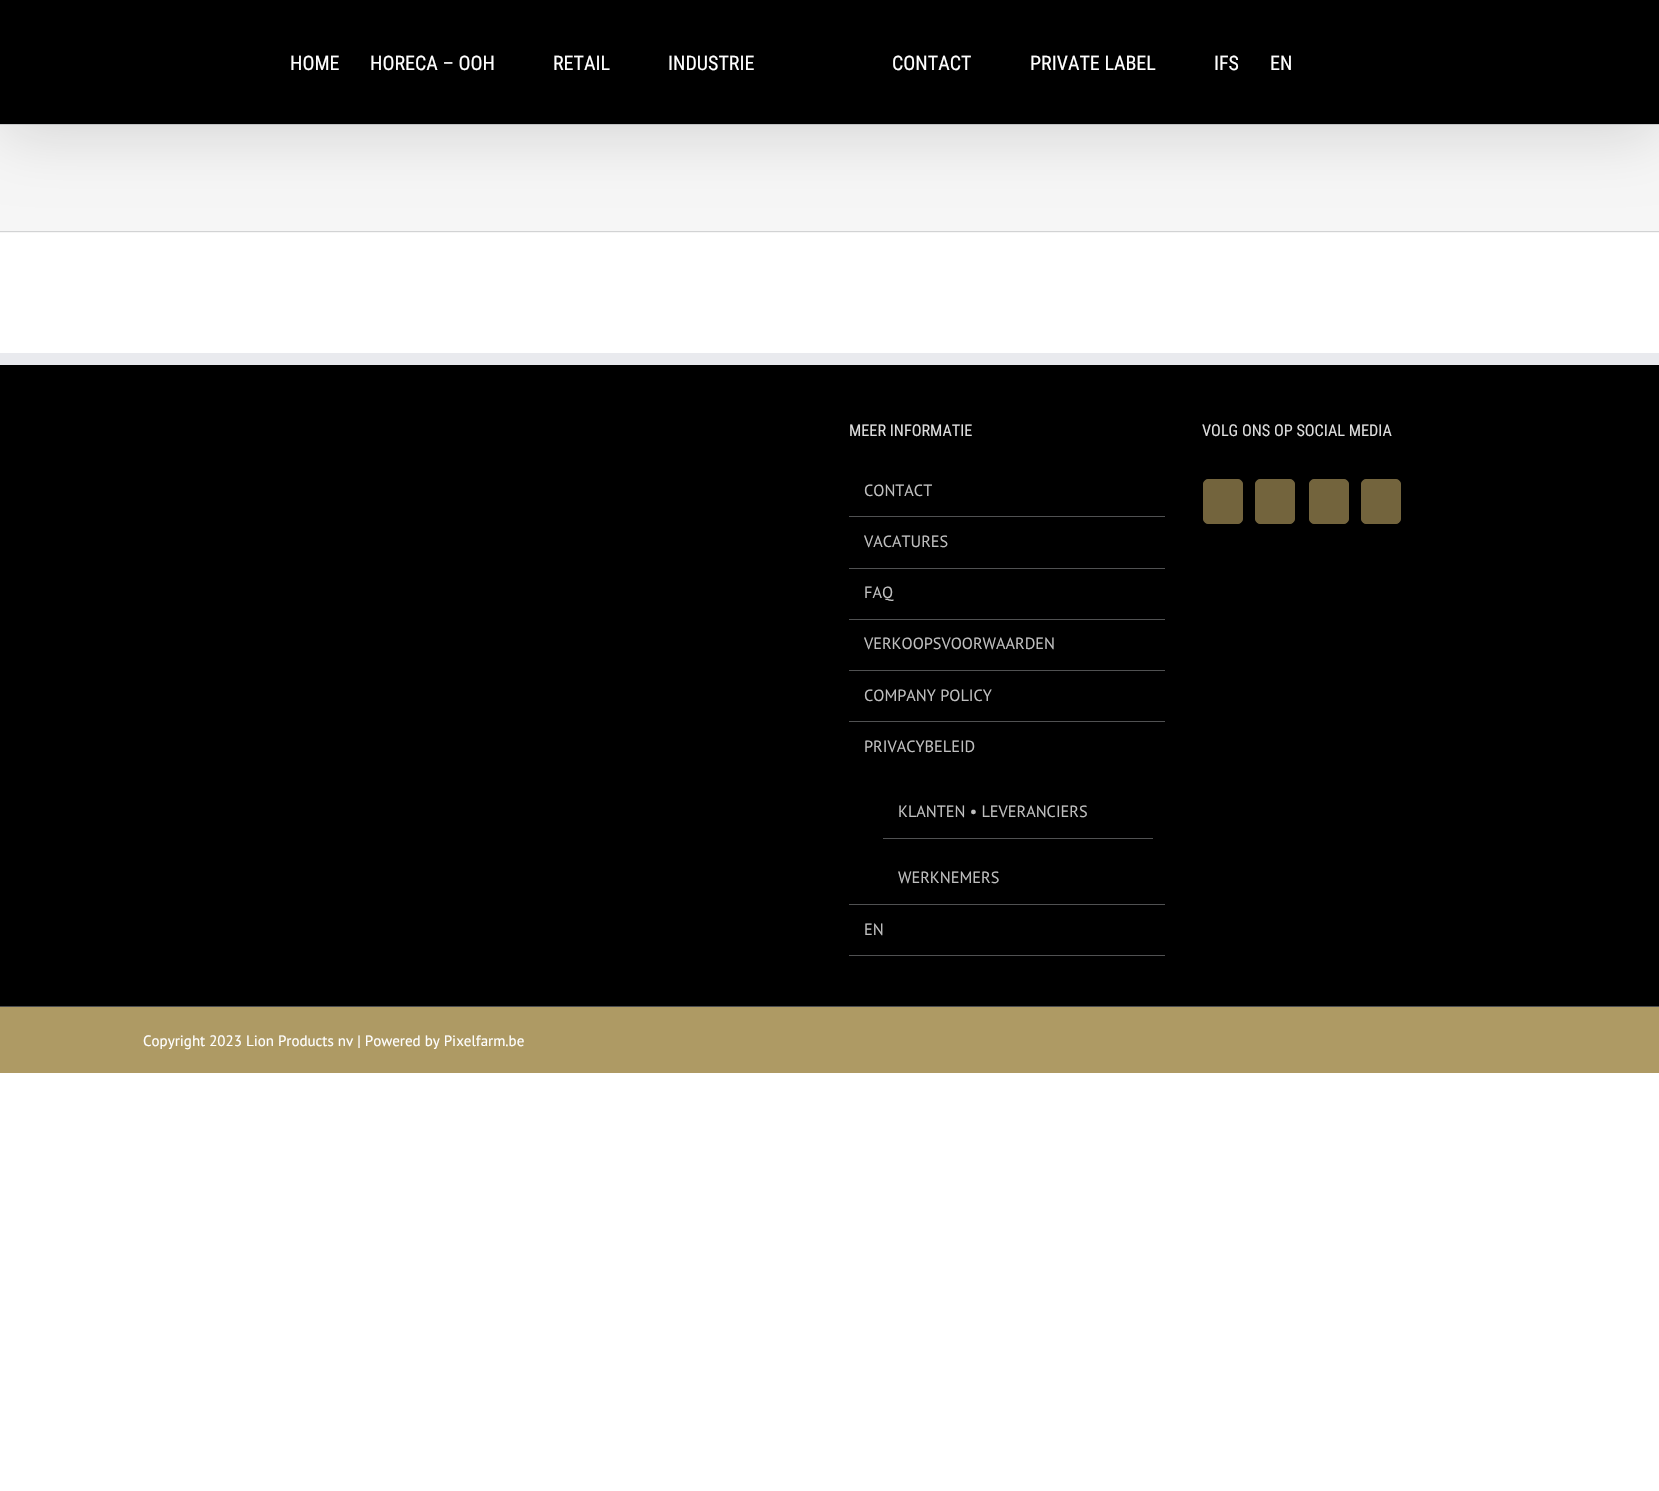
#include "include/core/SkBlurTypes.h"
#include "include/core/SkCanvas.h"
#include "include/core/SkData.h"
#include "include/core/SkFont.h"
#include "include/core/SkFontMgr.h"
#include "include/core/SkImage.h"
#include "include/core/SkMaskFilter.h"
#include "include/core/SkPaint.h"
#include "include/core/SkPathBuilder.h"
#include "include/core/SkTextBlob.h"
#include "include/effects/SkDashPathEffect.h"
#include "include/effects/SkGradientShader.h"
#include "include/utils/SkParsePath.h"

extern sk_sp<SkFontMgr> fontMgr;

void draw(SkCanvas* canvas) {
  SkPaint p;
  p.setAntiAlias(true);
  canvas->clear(SK_ColorWHITE);
  p.setColor(SkColorSetRGB(246, 246, 246));
  canvas->drawRect(SkRect::MakeLTRB(0, 125, 1659, 233), p);
  p.setColor(SkColorSetRGB(210, 211, 212));
  canvas->drawRect(SkRect::MakeLTRB(0, 124, 1659, 125), p);
  p.setColor(SkColorSetARGB(36, 0, 0, 0));
  p.setMaskFilter(SkMaskFilter::MakeBlur(kNormal_SkBlurStyle, 31));
  canvas->drawRect(SkRect::MakeLTRB(3, 15, 1658, 134), p);
  p.setMaskFilter(nullptr);
  p.setColor(SK_ColorBLACK);
  canvas->drawRect(SkRect::MakeLTRB(0, 0, 1659, 124), p);
  p.setColor(SkColorSetRGB(210, 211, 212));
  canvas->drawRect(SkRect::MakeLTRB(0, 231, 1659, 232), p);
  p.setColor(SK_ColorBLACK);
  canvas->drawRect(SkRect::MakeLTRB(0, 365, 1659, 1006), p);
  p.setColor(SkColorSetRGB(233, 234, 238));
  canvas->drawRect(SkRect::MakeLTRB(0, 353, 1659, 365), p);
  p.setColor(SkColorSetRGB(80, 81, 82));
  canvas->drawRect(SkRect::MakeLTRB(849, 516, 1165, 517), p);
  canvas->drawRect(SkRect::MakeLTRB(849, 568, 1165, 569), p);
  canvas->drawRect(SkRect::MakeLTRB(849, 619, 1165, 620), p);
  canvas->drawRect(SkRect::MakeLTRB(849, 670, 1165, 671), p);
  canvas->drawRect(SkRect::MakeLTRB(849, 721, 1165, 722), p);
  canvas->drawRect(SkRect::MakeLTRB(849, 904, 1165, 905), p);
  canvas->drawRect(SkRect::MakeLTRB(883, 838, 1153, 839), p);
  canvas->drawRect(SkRect::MakeLTRB(849, 955, 1165, 956), p);
  p.setColor(SkColorSetRGB(115, 100, 61));
  canvas->drawRoundRect(SkRect::MakeLTRB(1203.5f, 479.5f, 1242.5f, 523.5f), 4.5f, 4.5f, p);
  p.setStyle(SkPaint::kStroke_Style);
  p.setStrokeWidth(1);
  canvas->drawRoundRect(SkRect::MakeLTRB(1203.5f, 479.5f, 1242.5f, 523.5f), 4.5f, 4.5f, p);
  p.setStyle(SkPaint::kFill_Style);
  canvas->drawRoundRect(SkRect::MakeLTRB(1255.5f, 479.5f, 1294.5f, 523.5f), 4.5f, 4.5f, p);
  p.setStyle(SkPaint::kStroke_Style);
  canvas->drawRoundRect(SkRect::MakeLTRB(1255.5f, 479.5f, 1294.5f, 523.5f), 4.5f, 4.5f, p);
  p.setStyle(SkPaint::kFill_Style);
  canvas->drawRoundRect(SkRect::MakeLTRB(1309.5f, 479.5f, 1348.5f, 523.5f), 4.5f, 4.5f, p);
  p.setStyle(SkPaint::kStroke_Style);
  canvas->drawRoundRect(SkRect::MakeLTRB(1309.5f, 479.5f, 1348.5f, 523.5f), 4.5f, 4.5f, p);
  p.setStyle(SkPaint::kFill_Style);
  canvas->drawRoundRect(SkRect::MakeLTRB(1361.5f, 479.5f, 1400.5f, 523.5f), 4.5f, 4.5f, p);
  p.setStyle(SkPaint::kStroke_Style);
  canvas->drawRoundRect(SkRect::MakeLTRB(1361.5f, 479.5f, 1400.5f, 523.5f), 4.5f, 4.5f, p);
  p.setStyle(SkPaint::kFill_Style);
  p.setColor(SkColorSetRGB(174, 154, 100));
  canvas->drawRect(SkRect::MakeLTRB(0, 1007, 1659, 1073), p);
  p.setColor(SkColorSetRGB(75, 76, 77));
  canvas->drawRect(SkRect::MakeLTRB(0, 1006, 1659, 1007), p);
  SkFont font1(fontMgr->matchFamilyStyle("Roboto Condensed", SkFontStyle::Normal()), 20);
  font1.setSubpixel(true);
  p.setColor(SK_ColorWHITE);
  canvas->drawString("HOME", 290, 70, font1, p);
  canvas->drawString("HORECA – OOH", 370, 70, font1, p);
  canvas->drawString("RETAIL", 553, 70, font1, p);
  canvas->drawString("INDUSTRIE", 668, 70, font1, p);
  canvas->drawString("CONTACT", 892, 70, font1, p);
  canvas->drawString("PRIVATE LABEL", 1030, 70, font1, p);
  canvas->drawString("IFS", 1214, 70, font1, p);
  canvas->drawString("EN", 1270, 70, font1, p);
  SkFont font2(fontMgr->matchFamilyStyle("Roboto Condensed", SkFontStyle::Normal()), 16.25f);
  font2.setSubpixel(true);
  p.setColor(SkColorSetRGB(221, 221, 221));
  canvas->drawString("MEER INFORMATIE", 849, 436, font2, p);
  SkFont font3(fontMgr->matchFamilyStyle("PT Sans", SkFontStyle::Normal()), 16.25f);
  font3.setSubpixel(true);
  p.setColor(SkColorSetRGB(191, 191, 191));
  canvas->drawString("CONTACT", 864, 496, font3, p);
  canvas->drawString("VACATURES", 864, 547, font3, p);
  canvas->drawString("FAQ", 864, 598, font3, p);
  canvas->drawString("VERKOOPSVOORWAARDEN", 864, 649, font3, p);
  canvas->drawString("COMPANY POLICY", 864, 701, font3, p);
  canvas->drawString("PRIVACYBELEID", 864, 752, font3, p);
  canvas->drawString("KLANTEN • LEVERANCIERS", 898, 817, font3, p);
  canvas->drawString("WERKNEMERS", 898, 883, font3, p);
  canvas->drawString("EN", 864, 935, font3, p);
  p.setColor(SkColorSetRGB(221, 221, 221));
  canvas->drawString("VOLG ONS OP SOCIAL MEDIA", 1202, 436, font2, p);
  SkFont font4(fontMgr->matchFamilyStyle("PT Sans", SkFontStyle::Normal()), 15);
  font4.setSubpixel(true);
  p.setColor(SK_ColorWHITE);
  canvas->drawString("Copyright 2023 Lion Products nv | Powered by Pixelfarm.be", 143, 1046, font4, p);
}
